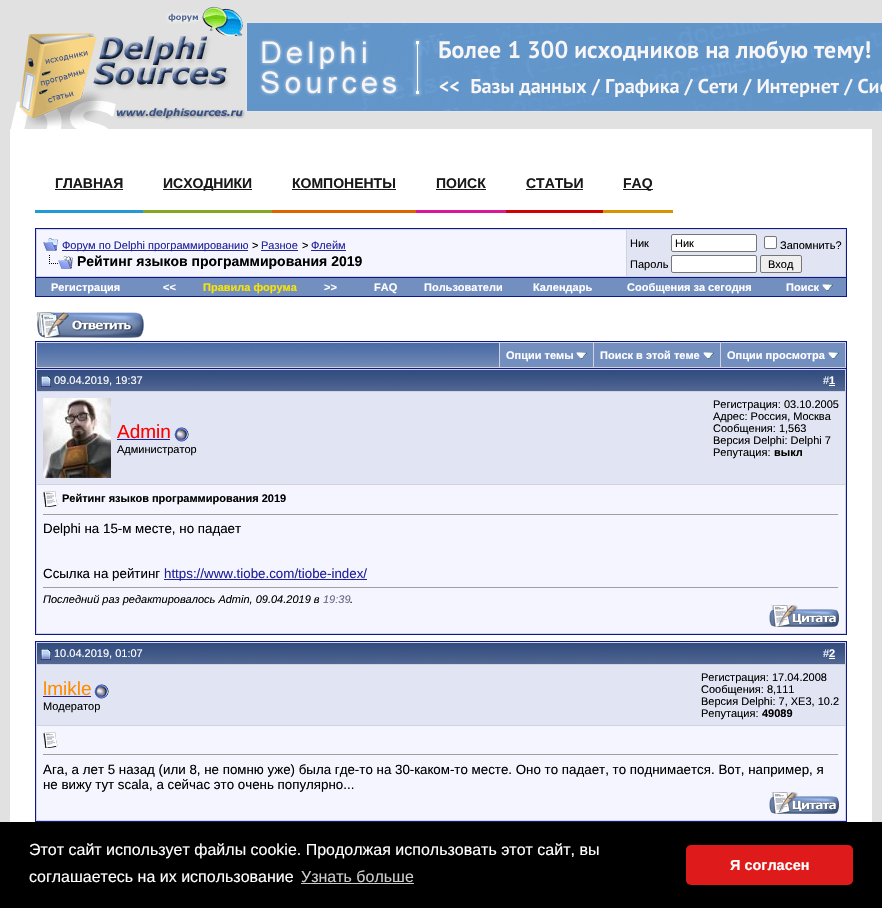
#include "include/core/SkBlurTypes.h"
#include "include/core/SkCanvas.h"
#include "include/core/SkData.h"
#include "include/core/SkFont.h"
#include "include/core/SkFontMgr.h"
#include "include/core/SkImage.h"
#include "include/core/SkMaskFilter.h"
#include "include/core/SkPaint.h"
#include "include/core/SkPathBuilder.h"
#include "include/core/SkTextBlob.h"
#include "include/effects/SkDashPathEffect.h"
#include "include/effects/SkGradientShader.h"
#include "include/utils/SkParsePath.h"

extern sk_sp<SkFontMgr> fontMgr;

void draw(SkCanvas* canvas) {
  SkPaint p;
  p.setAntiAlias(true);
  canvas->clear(SkColorSetRGB(225, 225, 226));
  canvas->drawImageRect(SkImages::DeferredFromEncodedData(SkData::MakeFromFileName("images/1.png")), SkRect::MakeLTRB(11, 6, 245, 129), SkSamplingOptions());
  canvas->drawImageRect(SkImages::DeferredFromEncodedData(SkData::MakeFromFileName("images/2.png")), SkRect::MakeLTRB(246, 22, 882, 112), SkSamplingOptions());
  p.setColor(SK_ColorWHITE);
  canvas->drawRect(SkRect::MakeLTRB(10, 129, 872, 822), p);
  p.setColor(SkColorSetRGB(34, 154, 214));
  canvas->drawRect(SkRect::MakeLTRB(35, 210, 143, 213), p);
  p.setColor(SkColorSetRGB(26, 25, 25));
  canvas->drawRect(SkRect::MakeLTRB(55, 189, 123, 190), p);
  p.setColor(SkColorSetRGB(134, 168, 33));
  canvas->drawRect(SkRect::MakeLTRB(143, 210, 272, 213), p);
  p.setColor(SkColorSetRGB(26, 25, 25));
  canvas->drawRect(SkRect::MakeLTRB(163, 189, 252, 190), p);
  p.setColor(SkColorSetRGB(221, 99, 0));
  canvas->drawRect(SkRect::MakeLTRB(272, 210, 416, 213), p);
  p.setColor(SkColorSetRGB(26, 25, 25));
  canvas->drawRect(SkRect::MakeLTRB(292, 189, 396, 190), p);
  p.setColor(SkColorSetRGB(217, 24, 151));
  canvas->drawRect(SkRect::MakeLTRB(416, 210, 506, 213), p);
  p.setColor(SkColorSetRGB(26, 25, 25));
  canvas->drawRect(SkRect::MakeLTRB(436, 189, 486, 190), p);
  p.setColor(SkColorSetRGB(211, 0, 0));
  canvas->drawRect(SkRect::MakeLTRB(506, 210, 603, 213), p);
  p.setColor(SkColorSetRGB(26, 25, 25));
  canvas->drawRect(SkRect::MakeLTRB(526, 189, 583, 190), p);
  p.setColor(SkColorSetRGB(219, 146, 0));
  canvas->drawRect(SkRect::MakeLTRB(603, 210, 673, 213), p);
  p.setColor(SkColorSetRGB(26, 25, 25));
  canvas->drawRect(SkRect::MakeLTRB(623, 189, 653, 190), p);
  p.setColor(SkColorSetRGB(209, 209, 225));
  canvas->drawRect(SkRect::MakeLTRB(35.5f, 228.5f, 846.5f, 277.5f), p);
  p.setStyle(SkPaint::kStroke_Style);
  p.setStrokeWidth(1);
  p.setColor(SkColorSetRGB(11, 25, 140));
  canvas->drawRect(SkRect::MakeLTRB(35.5f, 228.5f, 846.5f, 277.5f), p);
  p.setStyle(SkPaint::kFill_Style);
  p.setColor(SkColorSetRGB(245, 245, 255));
  canvas->drawRect(SkRect::MakeLTRB(37, 230, 626, 276), p);
  canvas->drawImageRect(SkImages::DeferredFromEncodedData(SkData::MakeFromFileName("images/3.png")), SkRect::MakeLTRB(43, 238, 58, 251), SkSamplingOptions());
  p.setColor(SkColorSetRGB(34, 34, 156));
  canvas->drawRect(SkRect::MakeLTRB(62, 250, 248, 251), p);
  canvas->drawRect(SkRect::MakeLTRB(261, 250, 298, 251), p);
  canvas->drawRect(SkRect::MakeLTRB(311, 250, 346, 251), p);
  canvas->drawImageRect(SkImages::DeferredFromEncodedData(SkData::MakeFromFileName("images/4.png")), SkRect::MakeLTRB(49, 255, 73, 269), SkSamplingOptions());
  p.setColor(SkColorSetRGB(225, 228, 242));
  canvas->drawRect(SkRect::MakeLTRB(627, 230, 845, 276), p);
  p.setColor(SK_ColorWHITE);
  canvas->drawRoundRect(SkRect::MakeLTRB(671.5f, 234.5f, 756.5f, 251.5f), 1.5f, 1.5f, p);
  p.setStyle(SkPaint::kStroke_Style);
  p.setColor(SkColorSetRGB(118, 118, 118));
  canvas->drawRoundRect(SkRect::MakeLTRB(671.5f, 234.5f, 756.5f, 251.5f), 1.5f, 1.5f, p);
  p.setStyle(SkPaint::kFill_Style);
  p.setColor(SK_ColorWHITE);
  canvas->drawRoundRect(SkRect::MakeLTRB(764.5f, 236.5f, 776.5f, 248.5f), 1.5f, 1.5f, p);
  p.setStyle(SkPaint::kStroke_Style);
  p.setColor(SkColorSetRGB(118, 118, 118));
  canvas->drawRoundRect(SkRect::MakeLTRB(764.5f, 236.5f, 776.5f, 248.5f), 1.5f, 1.5f, p);
  p.setStyle(SkPaint::kFill_Style);
  p.setColor(SK_ColorWHITE);
  canvas->drawRoundRect(SkRect::MakeLTRB(671.5f, 255.5f, 756.5f, 272.5f), 1.5f, 1.5f, p);
  p.setStyle(SkPaint::kStroke_Style);
  p.setColor(SkColorSetRGB(118, 118, 118));
  canvas->drawRoundRect(SkRect::MakeLTRB(671.5f, 255.5f, 756.5f, 272.5f), 1.5f, 1.5f, p);
  p.setStyle(SkPaint::kFill_Style);
  p.setColor(SkColorSetRGB(239, 239, 239));
  canvas->drawRoundRect(SkRect::MakeLTRB(760.5f, 255.5f, 801.5f, 272.5f), 1.5f, 1.5f, p);
  p.setStyle(SkPaint::kStroke_Style);
  p.setColor(SkColorSetRGB(118, 118, 118));
  canvas->drawRoundRect(SkRect::MakeLTRB(760.5f, 255.5f, 801.5f, 272.5f), 1.5f, 1.5f, p);
  p.setStyle(SkPaint::kFill_Style);
  p.setColor(SkColorSetRGB(11, 25, 140));
  canvas->drawRect(SkRect::MakeLTRB(846, 278, 847, 297), p);
  canvas->drawRect(SkRect::MakeLTRB(35, 296, 847, 297), p);
  canvas->drawRect(SkRect::MakeLTRB(35, 278, 36, 297), p);
  p.setColor(SkColorSetRGB(115, 143, 191));
  canvas->drawRect(SkRect::MakeLTRB(36, 278, 846, 296), p);
  canvas->drawImageRect(SkImages::DeferredFromEncodedData(SkData::MakeFromFileName("images/5.png")), SkRect::MakeLTRB(822, 284, 833, 291), SkSamplingOptions());
  canvas->drawImageRect(SkImages::DeferredFromEncodedData(SkData::MakeFromFileName("images/6.png")), SkRect::MakeLTRB(36, 312, 144, 338), SkSamplingOptions());
  p.setColor(SkColorSetRGB(209, 209, 225));
  canvas->drawRect(SkRect::MakeLTRB(36, 342, 846, 368), p);
  p.setColor(SkColorSetRGB(11, 25, 140));
  canvas->drawRect(SkRect::MakeLTRB(35, 341, 847, 342), p);
  canvas->drawRect(SkRect::MakeLTRB(846, 341, 847, 368), p);
  canvas->drawRect(SkRect::MakeLTRB(35, 341, 36, 368), p);
  canvas->drawImageRect(SkImages::DeferredFromEncodedData(SkData::MakeFromFileName("images/7.png")), SkRect::MakeLTRB(37, 343, 499, 367), SkSamplingOptions());
  p.setColor(SkColorSetRGB(115, 143, 191));
  canvas->drawRect(SkRect::MakeLTRB(500, 343, 593, 367), p);
  canvas->drawImageRect(SkImages::DeferredFromEncodedData(SkData::MakeFromFileName("images/5.png")), SkRect::MakeLTRB(576, 352, 587, 359), SkSamplingOptions());
  canvas->drawRect(SkRect::MakeLTRB(594, 343, 720, 367), p);
  canvas->drawImageRect(SkImages::DeferredFromEncodedData(SkData::MakeFromFileName("images/5.png")), SkRect::MakeLTRB(703, 352, 714, 359), SkSamplingOptions());
  canvas->drawRect(SkRect::MakeLTRB(721, 343, 845, 367), p);
  canvas->drawImageRect(SkImages::DeferredFromEncodedData(SkData::MakeFromFileName("images/5.png")), SkRect::MakeLTRB(828, 352, 839, 359), SkSamplingOptions());
  p.setColor(SkColorSetRGB(209, 209, 225));
  canvas->drawRect(SkRect::MakeLTRB(35.5f, 368.5f, 846.5f, 634.5f), p);
  p.setStyle(SkPaint::kStroke_Style);
  p.setColor(SkColorSetRGB(11, 25, 140));
  canvas->drawRect(SkRect::MakeLTRB(35.5f, 368.5f, 846.5f, 634.5f), p);
  canvas->drawImageRect(SkImages::DeferredFromEncodedData(SkData::MakeFromFileName("images/8.png")), SkRect::MakeLTRB(37, 370, 845, 391), SkSamplingOptions());
  canvas->drawImageRect(SkImages::DeferredFromEncodedData(SkData::MakeFromFileName("images/9.png")), SkRect::MakeLTRB(41, 376, 51, 387), SkSamplingOptions());
  p.setStyle(SkPaint::kFill_Style);
  p.setColor(SK_ColorWHITE);
  canvas->drawRect(SkRect::MakeLTRB(829, 385, 835, 386), p);
  p.setColor(SkColorSetRGB(225, 228, 242));
  canvas->drawRect(SkRect::MakeLTRB(37, 392, 845, 484), p);
  canvas->drawImageRect(SkImages::DeferredFromEncodedData(SkData::MakeFromFileName("images/10.png")), SkRect::MakeLTRB(43, 398, 111, 478), SkSamplingOptions());
  p.setColor(SkColorSetRGB(34, 34, 156));
  canvas->drawRect(SkRect::MakeLTRB(117, 439, 170, 440), p);
  canvas->drawImageRect(SkImages::DeferredFromEncodedData(SkData::MakeFromFileName("images/11.png")), SkRect::MakeLTRB(174, 427, 189, 442), SkSamplingOptions());
  p.setColor(SkColorSetRGB(245, 245, 255));
  canvas->drawRect(SkRect::MakeLTRB(37, 485, 845, 633), p);
  canvas->drawImageRect(SkImages::DeferredFromEncodedData(SkData::MakeFromFileName("images/12.png")), SkRect::MakeLTRB(43, 491, 58, 507), SkSamplingOptions());
  p.setColor(SkColorSetRGB(159, 159, 159));
  canvas->drawRect(SkRect::MakeLTRB(43, 514, 839, 515), p);
  p.setColor(SkColorSetRGB(238, 238, 238));
  canvas->drawRect(SkRect::MakeLTRB(838, 514, 839, 515), p);
  p.setColor(SkColorSetRGB(34, 34, 156));
  canvas->drawRect(SkRect::MakeLTRB(164, 579, 367, 580), p);
  p.setColor(SkColorSetRGB(159, 159, 159));
  canvas->drawRect(SkRect::MakeLTRB(43, 587, 839, 588), p);
  p.setColor(SkColorSetRGB(238, 238, 238));
  canvas->drawRect(SkRect::MakeLTRB(838, 587, 839, 588), p);
  canvas->drawImageRect(SkImages::DeferredFromEncodedData(SkData::MakeFromFileName("images/13.png")), SkRect::MakeLTRB(769, 605, 839, 627), SkSamplingOptions());
  p.setColor(SkColorSetRGB(209, 209, 225));
  canvas->drawRect(SkRect::MakeLTRB(35.5f, 641.5f, 846.5f, 821.5f), p);
  p.setStyle(SkPaint::kStroke_Style);
  p.setColor(SkColorSetRGB(11, 25, 140));
  canvas->drawRect(SkRect::MakeLTRB(35.5f, 641.5f, 846.5f, 821.5f), p);
  canvas->drawImageRect(SkImages::DeferredFromEncodedData(SkData::MakeFromFileName("images/8.png")), SkRect::MakeLTRB(37, 643, 845, 664), SkSamplingOptions());
  canvas->drawImageRect(SkImages::DeferredFromEncodedData(SkData::MakeFromFileName("images/9.png")), SkRect::MakeLTRB(41, 649, 51, 660), SkSamplingOptions());
  p.setStyle(SkPaint::kFill_Style);
  p.setColor(SK_ColorWHITE);
  canvas->drawRect(SkRect::MakeLTRB(829, 658, 835, 659), p);
  p.setColor(SkColorSetRGB(225, 228, 242));
  canvas->drawRect(SkRect::MakeLTRB(37, 665, 845, 725), p);
  p.setColor(SkColorSetRGB(34, 34, 156));
  canvas->drawRect(SkRect::MakeLTRB(43, 696, 91, 697), p);
  canvas->drawImageRect(SkImages::DeferredFromEncodedData(SkData::MakeFromFileName("images/11.png")), SkRect::MakeLTRB(94, 684, 109, 699), SkSamplingOptions());
  p.setColor(SkColorSetRGB(245, 245, 255));
  canvas->drawRect(SkRect::MakeLTRB(37, 726, 845, 820), p);
  canvas->drawImageRect(SkImages::DeferredFromEncodedData(SkData::MakeFromFileName("images/12.png")), SkRect::MakeLTRB(43, 732, 58, 748), SkSamplingOptions());
  p.setColor(SkColorSetRGB(159, 159, 159));
  canvas->drawRect(SkRect::MakeLTRB(43, 754, 839, 755), p);
  p.setColor(SkColorSetRGB(238, 238, 238));
  canvas->drawRect(SkRect::MakeLTRB(838, 754, 839, 755), p);
  canvas->drawImageRect(SkImages::DeferredFromEncodedData(SkData::MakeFromFileName("images/13.png")), SkRect::MakeLTRB(769, 792, 839, 814), SkSamplingOptions());
  p.setColor(SK_ColorBLACK);
  canvas->drawRect(SkRect::MakeLTRB(0, 822, 882, 908), p);
  p.setColor(SkColorSetRGB(204, 204, 204));
  canvas->drawRect(SkRect::MakeLTRB(301, 883, 414, 884), p);
  p.setColor(SkColorSetRGB(222, 26, 26));
  canvas->drawRoundRect(SkRect::MakeLTRB(686, 845, 853, 885), 5, 5, p);
  SkFont font1(fontMgr->matchFamilyStyle("Liberation Sans", SkFontStyle::Bold()), 14);
  font1.setSubpixel(true);
  p.setColor(SkColorSetRGB(26, 25, 25));
  canvas->drawString("ГЛАВНАЯ", 55, 188, font1, p);
  canvas->drawString("ИСХОДНИКИ", 163, 188, font1, p);
  canvas->drawString("КОМПОНЕНТЫ", 292, 188, font1, p);
  canvas->drawString("ПОИСК", 436, 188, font1, p);
  canvas->drawString("СТАТЬИ", 526, 188, font1, p);
  canvas->drawString("FAQ", 623, 188, font1, p);
  SkFont font2(fontMgr->matchFamilyStyle("Liberation Sans", SkFontStyle::Normal()), 11);
  font2.setSubpixel(true);
  p.setColor(SkColorSetRGB(34, 34, 156));
  canvas->drawString("Форум по Delphi программированию", 62, 249, font2, p);
  p.setColor(SK_ColorBLACK);
  canvas->drawString(">", 252, 249, font2, p);
  p.setColor(SkColorSetRGB(34, 34, 156));
  canvas->drawString("Разное", 261, 249, font2, p);
  p.setColor(SK_ColorBLACK);
  canvas->drawString(">", 302, 249, font2, p);
  p.setColor(SkColorSetRGB(34, 34, 156));
  canvas->drawString("Флейм", 311, 249, font2, p);
  p.setColor(SK_ColorBLACK);
  canvas->drawString("Рейтинг языков программирования 2019", 77, 266, font1, p);
  canvas->drawString("Ник", 630, 247, font2, p);
  canvas->drawString("Ник", 675, 247, font2, p);
  canvas->drawString("Запомнить?", 780, 249, font2, p);
  canvas->drawString("Пароль", 630, 268, font2, p);
  canvas->drawString("Вход", 768, 268, font2, p);
  SkFont font3(fontMgr->matchFamilyStyle("Liberation Sans", SkFontStyle::Bold()), 11);
  font3.setSubpixel(true);
  p.setColor(SK_ColorWHITE);
  canvas->drawString("Регистрация", 51, 291, font3, p);
  canvas->drawString("<<", 163, 291, font3, p);
  p.setColor(SkColorSetRGB(248, 228, 6));
  canvas->drawString("Правила форума", 203, 291, font3, p);
  p.setColor(SK_ColorWHITE);
  canvas->drawString(">>", 324, 291, font3, p);
  canvas->drawString("FAQ", 374, 291, font3, p);
  canvas->drawString("Пользователи", 424, 291, font3, p);
  canvas->drawString("Календарь", 533, 291, font3, p);
  canvas->drawString("Сообщения за сегодня", 627, 291, font3, p);
  canvas->drawString("Поиск", 786, 291, font3, p);
  canvas->drawString("Опции темы", 506, 359, font3, p);
  canvas->drawString("Поиск в этой теме", 600, 359, font3, p);
  canvas->drawString("Опции просмотра", 727, 359, font3, p);
  canvas->drawString("09.04.2019, 19:37", 54, 384, font2, p);
  canvas->drawString("#", 823, 384, font2, p);
  canvas->drawString("1", 829, 384, font3, p);
  SkFont font4(fontMgr->matchFamilyStyle("Liberation Sans", SkFontStyle::Normal()), 19);
  font4.setSubpixel(true);
  p.setColor(SkColorSetRGB(255, 0, 0));
  canvas->drawString("Admin", 117, 438, font4, p);
  p.setColor(SK_ColorBLACK);
  canvas->drawString("Администратор", 117, 453, font2, p);
  canvas->drawString("Регистрация: 03.10.2005", 713, 408, font2, p);
  canvas->drawString("Адрес: Россия, Москва", 713, 420, font2, p);
  canvas->drawString("Сообщения: 1,563", 713, 432, font2, p);
  canvas->drawString("Версия Delphi: Delphi 7", 713, 444, font2, p);
  canvas->drawString("Репутация:", 713, 456, font2, p);
  canvas->drawString("выкл", 774, 456, font3, p);
  canvas->drawString("Рейтинг языков программирования 2019", 62, 502, font3, p);
  SkFont font5(fontMgr->matchFamilyStyle("Liberation Sans", SkFontStyle::Normal()), 13.33f);
  font5.setSubpixel(true);
  canvas->drawString("Delphi на 15-м месте, но падает", 43, 533, font5, p);
  canvas->drawString("Ссылка на рейтинг", 43, 578, font5, p);
  p.setColor(SkColorSetRGB(34, 34, 156));
  canvas->drawString("https://www.tiobe.com/tiobe-index/", 164, 578, font5, p);
  SkFont font6(fontMgr->matchFamilyStyle("Liberation Sans", SkFontStyle::Italic()), 11);
  font6.setSubpixel(true);
  p.setColor(SK_ColorBLACK);
  canvas->drawString("Последний раз редактировалось Admin, 09.04.2019 в", 43, 603, font6, p);
  p.setColor(SkColorSetRGB(102, 102, 134));
  canvas->drawString("19:39", 323, 603, font6, p);
  p.setColor(SK_ColorBLACK);
  canvas->drawString(".", 350, 603, font6, p);
  p.setColor(SK_ColorWHITE);
  canvas->drawString("10.04.2019, 01:07", 54, 657, font2, p);
  canvas->drawString("#", 823, 657, font2, p);
  canvas->drawString("2", 829, 657, font3, p);
  p.setColor(SkColorSetRGB(255, 140, 0));
  canvas->drawString("lmikle", 43, 695, font4, p);
  p.setColor(SK_ColorBLACK);
  canvas->drawString("Модератор", 43, 710, font2, p);
  canvas->drawString("Регистрация: 17.04.2008", 701, 681, font2, p);
  canvas->drawString("Сообщения: 8,111", 701, 693, font2, p);
  canvas->drawString("Версия Delphi: 7, XE3, 10.2", 701, 705, font2, p);
  canvas->drawString("Репутация:", 701, 717, font2, p);
  canvas->drawString("49089", 762, 717, font3, p);
  canvas->drawString("Ага, а лет 5 назад (или 8, не помню уже) была где-то на 30-каком-то месте. Оно то падает, то поднимается. Вот, например, я", 43, 774, font5, p);
  canvas->drawString("не вижу тут scala, а сейчас это очень популярно...", 43, 789, font5, p);
  SkFont font7(fontMgr->matchFamilyStyle("Liberation Sans", SkFontStyle::Normal()), 16);
  font7.setSubpixel(true);
  p.setColor(SK_ColorWHITE);
  canvas->drawString("Этот сайт использует файлы cookie. Продолжая использовать этот сайт, вы", 29, 855, font7, p);
  canvas->drawString("соглашаетесь на их использование", 29, 882, font7, p);
  p.setColor(SkColorSetRGB(204, 204, 204));
  canvas->drawString("Узнать больше", 301, 882, font7, p);
  SkFont font8(fontMgr->matchFamilyStyle("Liberation Sans", SkFontStyle::Bold()), 14.5f);
  font8.setSubpixel(true);
  p.setColor(SK_ColorWHITE);
  canvas->drawString("Я согласен", 730, 870, font8, p);
}
